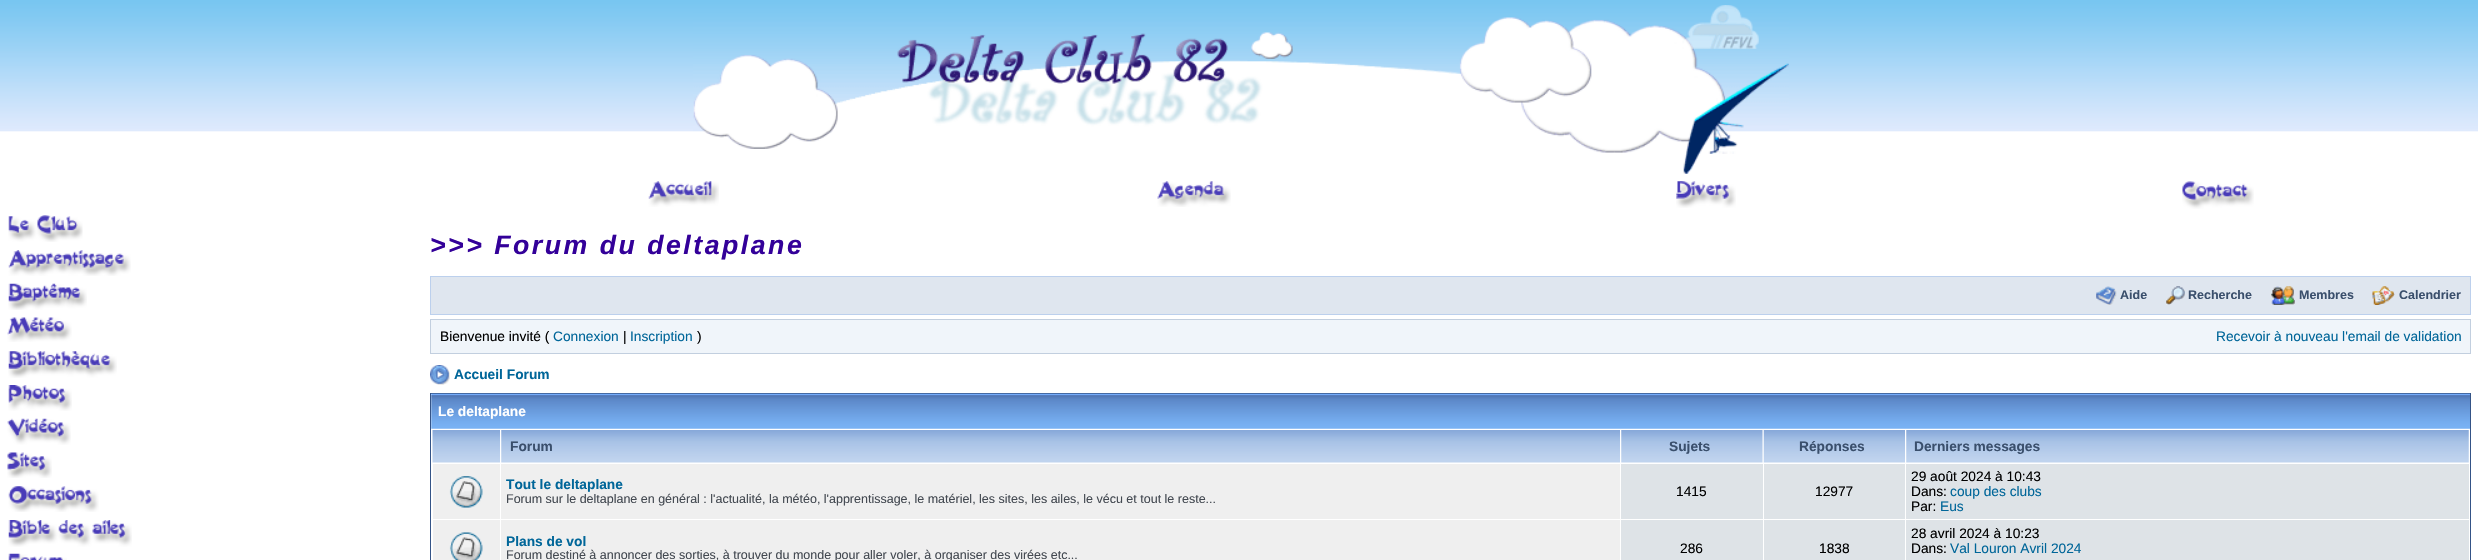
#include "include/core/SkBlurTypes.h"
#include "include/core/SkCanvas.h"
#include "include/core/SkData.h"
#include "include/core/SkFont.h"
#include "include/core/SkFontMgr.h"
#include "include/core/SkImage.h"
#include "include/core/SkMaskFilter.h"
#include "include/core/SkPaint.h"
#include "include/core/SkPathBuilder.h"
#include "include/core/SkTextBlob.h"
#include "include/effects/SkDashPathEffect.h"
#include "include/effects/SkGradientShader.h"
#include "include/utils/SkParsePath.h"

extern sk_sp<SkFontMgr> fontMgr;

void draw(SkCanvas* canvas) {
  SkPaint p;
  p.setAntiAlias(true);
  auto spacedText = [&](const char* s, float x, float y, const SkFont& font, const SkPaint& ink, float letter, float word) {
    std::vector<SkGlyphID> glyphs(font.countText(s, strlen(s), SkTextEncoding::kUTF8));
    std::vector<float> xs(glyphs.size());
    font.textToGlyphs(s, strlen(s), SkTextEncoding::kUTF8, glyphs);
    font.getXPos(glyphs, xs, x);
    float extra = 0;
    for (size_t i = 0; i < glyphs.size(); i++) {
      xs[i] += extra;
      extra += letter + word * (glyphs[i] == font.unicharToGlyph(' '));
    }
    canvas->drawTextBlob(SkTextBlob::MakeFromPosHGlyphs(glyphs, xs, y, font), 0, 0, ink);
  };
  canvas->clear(SK_ColorWHITE);
  canvas->drawImageRect(SkImages::DeferredFromEncodedData(SkData::MakeFromFileName("images/1.png")), SkRect::MakeLTRB(0, 0, 2478, 132), SkSamplingOptions());
  canvas->drawImageRect(SkImages::DeferredFromEncodedData(SkData::MakeFromFileName("images/2.png")), SkRect::MakeLTRB(693, 5, 1789, 174), SkSamplingOptions());
  canvas->drawImageRect(SkImages::DeferredFromEncodedData(SkData::MakeFromFileName("images/3.png")), SkRect::MakeLTRB(8, 215, 83, 242), SkSamplingOptions());
  canvas->drawImageRect(SkImages::DeferredFromEncodedData(SkData::MakeFromFileName("images/4.png")), SkRect::MakeLTRB(8, 250, 131, 276), SkSamplingOptions());
  canvas->drawImageRect(SkImages::DeferredFromEncodedData(SkData::MakeFromFileName("images/5.png")), SkRect::MakeLTRB(8, 283, 87, 310), SkSamplingOptions());
  canvas->drawImageRect(SkImages::DeferredFromEncodedData(SkData::MakeFromFileName("images/6.png")), SkRect::MakeLTRB(7, 317, 72, 342), SkSamplingOptions());
  canvas->drawImageRect(SkImages::DeferredFromEncodedData(SkData::MakeFromFileName("images/7.png")), SkRect::MakeLTRB(8, 351, 117, 378), SkSamplingOptions());
  canvas->drawImageRect(SkImages::DeferredFromEncodedData(SkData::MakeFromFileName("images/8.png")), SkRect::MakeLTRB(8, 385, 72, 411), SkSamplingOptions());
  canvas->drawImageRect(SkImages::DeferredFromEncodedData(SkData::MakeFromFileName("images/9.png")), SkRect::MakeLTRB(7, 418, 71, 445), SkSamplingOptions());
  canvas->drawImageRect(SkImages::DeferredFromEncodedData(SkData::MakeFromFileName("images/10.png")), SkRect::MakeLTRB(7, 452, 52, 478), SkSamplingOptions());
  canvas->drawImageRect(SkImages::DeferredFromEncodedData(SkData::MakeFromFileName("images/11.png")), SkRect::MakeLTRB(8, 486, 99, 512), SkSamplingOptions());
  canvas->drawImageRect(SkImages::DeferredFromEncodedData(SkData::MakeFromFileName("images/12.png")), SkRect::MakeLTRB(8, 520, 132, 547), SkSamplingOptions());
  canvas->drawImageRect(SkImages::DeferredFromEncodedData(SkData::MakeFromFileName("images/13.png")), SkRect::MakeLTRB(8, 553, 67, 560), SkSamplingOptions());
  canvas->drawImageRect(SkImages::DeferredFromEncodedData(SkData::MakeFromFileName("images/14.png")), SkRect::MakeLTRB(648, 181, 719, 207), SkSamplingOptions());
  canvas->drawImageRect(SkImages::DeferredFromEncodedData(SkData::MakeFromFileName("images/15.png")), SkRect::MakeLTRB(1157, 181, 1231, 207), SkSamplingOptions());
  canvas->drawImageRect(SkImages::DeferredFromEncodedData(SkData::MakeFromFileName("images/16.png")), SkRect::MakeLTRB(1676, 181, 1736, 208), SkSamplingOptions());
  canvas->drawImageRect(SkImages::DeferredFromEncodedData(SkData::MakeFromFileName("images/17.png")), SkRect::MakeLTRB(2182, 181, 2254, 209), SkSamplingOptions());
  p.setColor(SkColorSetRGB(223, 230, 239));
  canvas->drawRect(SkRect::MakeLTRB(430.5f, 276.5f, 2470.5f, 314.5f), p);
  p.setStyle(SkPaint::kStroke_Style);
  p.setStrokeWidth(1);
  p.setColor(SkColorSetRGB(188, 208, 237));
  canvas->drawRect(SkRect::MakeLTRB(430.5f, 276.5f, 2470.5f, 314.5f), p);
  canvas->drawImageRect(SkImages::DeferredFromEncodedData(SkData::MakeFromFileName("images/18.png")), SkRect::MakeLTRB(2096, 286, 2117, 305), SkSamplingOptions());
  canvas->drawImageRect(SkImages::DeferredFromEncodedData(SkData::MakeFromFileName("images/19.png")), SkRect::MakeLTRB(2166, 286, 2185, 305), SkSamplingOptions());
  canvas->drawImageRect(SkImages::DeferredFromEncodedData(SkData::MakeFromFileName("images/20.png")), SkRect::MakeLTRB(2271, 286, 2295, 305), SkSamplingOptions());
  canvas->drawImageRect(SkImages::DeferredFromEncodedData(SkData::MakeFromFileName("images/21.png")), SkRect::MakeLTRB(2372, 286, 2395, 305), SkSamplingOptions());
  p.setStyle(SkPaint::kFill_Style);
  p.setColor(SkColorSetRGB(240, 245, 250));
  canvas->drawRect(SkRect::MakeLTRB(430.5f, 319.5f, 2470.5f, 353.5f), p);
  p.setStyle(SkPaint::kStroke_Style);
  p.setColor(SkColorSetRGB(194, 207, 223));
  canvas->drawRect(SkRect::MakeLTRB(430.5f, 319.5f, 2470.5f, 353.5f), p);
  canvas->drawImageRect(SkImages::DeferredFromEncodedData(SkData::MakeFromFileName("images/22.png")), SkRect::MakeLTRB(430, 365, 450, 385), SkSamplingOptions());
  p.setColor(SkColorSetRGB(52, 84, 135));
  canvas->drawRect(SkRect::MakeLTRB(430.5f, 393.5f, 2470.5f, 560.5f), p);
  canvas->drawImageRect(SkImages::DeferredFromEncodedData(SkData::MakeFromFileName("images/23.png")), SkRect::MakeLTRB(431, 393, 2470, 429), SkSamplingOptions());
  canvas->drawImageRect(SkImages::DeferredFromEncodedData(SkData::MakeFromFileName("images/24.png")), SkRect::MakeLTRB(432, 430, 500, 463), SkSamplingOptions());
  canvas->drawImageRect(SkImages::DeferredFromEncodedData(SkData::MakeFromFileName("images/25.png")), SkRect::MakeLTRB(501, 430, 1620, 463), SkSamplingOptions());
  canvas->drawImageRect(SkImages::DeferredFromEncodedData(SkData::MakeFromFileName("images/26.png")), SkRect::MakeLTRB(1621, 430, 1763, 463), SkSamplingOptions());
  canvas->drawImageRect(SkImages::DeferredFromEncodedData(SkData::MakeFromFileName("images/27.png")), SkRect::MakeLTRB(1763, 430, 1905, 463), SkSamplingOptions());
  canvas->drawImageRect(SkImages::DeferredFromEncodedData(SkData::MakeFromFileName("images/28.png")), SkRect::MakeLTRB(1906, 430, 2469, 463), SkSamplingOptions());
  p.setStyle(SkPaint::kFill_Style);
  p.setColor(SkColorSetRGB(239, 239, 239));
  canvas->drawRect(SkRect::MakeLTRB(433, 464, 500, 519), p);
  canvas->drawImageRect(SkImages::DeferredFromEncodedData(SkData::MakeFromFileName("images/29.png")), SkRect::MakeLTRB(449, 476, 483, 508), SkSamplingOptions());
  canvas->drawRect(SkRect::MakeLTRB(501, 464, 1620, 519), p);
  p.setColor(SkColorSetRGB(222, 227, 231));
  canvas->drawRect(SkRect::MakeLTRB(1621, 464, 1763, 519), p);
  canvas->drawRect(SkRect::MakeLTRB(1764, 464, 1905, 519), p);
  canvas->drawRect(SkRect::MakeLTRB(1906, 464, 2469, 519), p);
  p.setColor(SkColorSetRGB(239, 239, 239));
  canvas->drawRect(SkRect::MakeLTRB(433, 520, 500, 560), p);
  canvas->drawImageRect(SkImages::DeferredFromEncodedData(SkData::MakeFromFileName("images/30.png")), SkRect::MakeLTRB(449, 532, 483, 560), SkSamplingOptions());
  canvas->drawRect(SkRect::MakeLTRB(501, 520, 1620, 560), p);
  p.setColor(SkColorSetRGB(222, 227, 231));
  canvas->drawRect(SkRect::MakeLTRB(1621, 520, 1763, 560), p);
  canvas->drawRect(SkRect::MakeLTRB(1764, 520, 1905, 560), p);
  canvas->drawRect(SkRect::MakeLTRB(1906, 520, 2469, 560), p);
  SkFont font1(fontMgr->matchFamilyStyle("Liberation Sans", SkFontStyle::BoldItalic()), 26.7f);
  font1.setSubpixel(true);
  p.setColor(SkColorSetRGB(51, 0, 153));
  spacedText(">>> Forum du deltaplane", 430, 254, font1, p, 2.5f, 0);
  SkFont font2(fontMgr->matchFamilyStyle("Liberation Sans", SkFontStyle::Bold()), 12.5f);
  font2.setSubpixel(true);
  p.setColor(SkColorSetRGB(58, 79, 108));
  canvas->drawString("Aide", 2120, 299, font2, p);
  canvas->drawString("Recherche", 2188, 299, font2, p);
  canvas->drawString("Membres", 2299, 299, font2, p);
  canvas->drawString("Calendrier", 2399, 299, font2, p);
  SkFont font3(fontMgr->matchFamilyStyle("Liberation Sans", SkFontStyle::Normal()), 13.75f);
  font3.setSubpixel(true);
  p.setColor(SK_ColorBLACK);
  canvas->drawString("Bienvenue invité (", 440, 341, font3, p);
  p.setColor(SkColorSetRGB(0, 102, 153));
  canvas->drawString("Connexion", 553, 341, font3, p);
  p.setColor(SK_ColorBLACK);
  canvas->drawString("|", 623, 341, font3, p);
  p.setColor(SkColorSetRGB(0, 102, 153));
  canvas->drawString("Inscription", 630, 341, font3, p);
  p.setColor(SK_ColorBLACK);
  canvas->drawString(")", 697, 341, font3, p);
  p.setColor(SkColorSetRGB(0, 102, 153));
  canvas->drawString("Recevoir à nouveau l'email de validation", 2216, 341, font3, p);
  SkFont font4(fontMgr->matchFamilyStyle("Liberation Sans", SkFontStyle::Bold()), 13.75f);
  font4.setSubpixel(true);
  canvas->drawString("Accueil Forum", 454, 379, font4, p);
  p.setColor(SK_ColorWHITE);
  canvas->drawString("Le deltaplane", 438, 416, font4, p);
  p.setColor(SkColorSetRGB(58, 79, 108));
  canvas->drawString("Forum", 510, 451, font4, p);
  canvas->drawString("Sujets", 1669, 451, font4, p);
  canvas->drawString("Réponses", 1799, 451, font4, p);
  canvas->drawString("Derniers messages", 1914, 451, font4, p);
  p.setColor(SkColorSetRGB(0, 102, 153));
  canvas->drawString("Tout le deltaplane", 506, 489, font4, p);
  SkFont font5(fontMgr->matchFamilyStyle("Liberation Sans", SkFontStyle::Normal()), 12.5f);
  font5.setSubpixel(true);
  p.setColor(SkColorSetRGB(67, 73, 81));
  canvas->drawString("Forum sur le deltaplane en général : l'actualité, la météo, l'apprentissage, le matériel, les sites, les ailes, le vécu et tout le reste...", 506, 503, font5, p);
  p.setColor(SK_ColorBLACK);
  canvas->drawString("1415", 1676, 496, font3, p);
  canvas->drawString("12977", 1815, 496, font3, p);
  canvas->drawString("29 août 2024 à 10:43", 1911, 481, font3, p);
  canvas->drawString("Dans:", 1911, 496, font3, p);
  p.setColor(SkColorSetRGB(0, 102, 153));
  canvas->drawString("coup des clubs", 1950, 496, font3, p);
  p.setColor(SK_ColorBLACK);
  canvas->drawString("Par:", 1911, 511, font3, p);
  p.setColor(SkColorSetRGB(0, 102, 153));
  canvas->drawString("Eus", 1940, 511, font3, p);
  canvas->drawString("Plans de vol", 506, 546, font4, p);
  p.setColor(SkColorSetRGB(67, 73, 81));
  canvas->drawString("Forum destiné à annoncer des sorties, à trouver du monde pour aller voler, à organiser des virées etc...", 506, 559, font5, p);
  p.setColor(SK_ColorBLACK);
  canvas->drawString("286", 1680, 553, font3, p);
  canvas->drawString("1838", 1819, 553, font3, p);
  canvas->drawString("28 avril 2024 à 10:23", 1911, 538, font3, p);
  canvas->drawString("Dans:", 1911, 553, font3, p);
  p.setColor(SkColorSetRGB(0, 102, 153));
  canvas->drawString("Val Louron Avril 2024", 1950, 553, font3, p);
}
